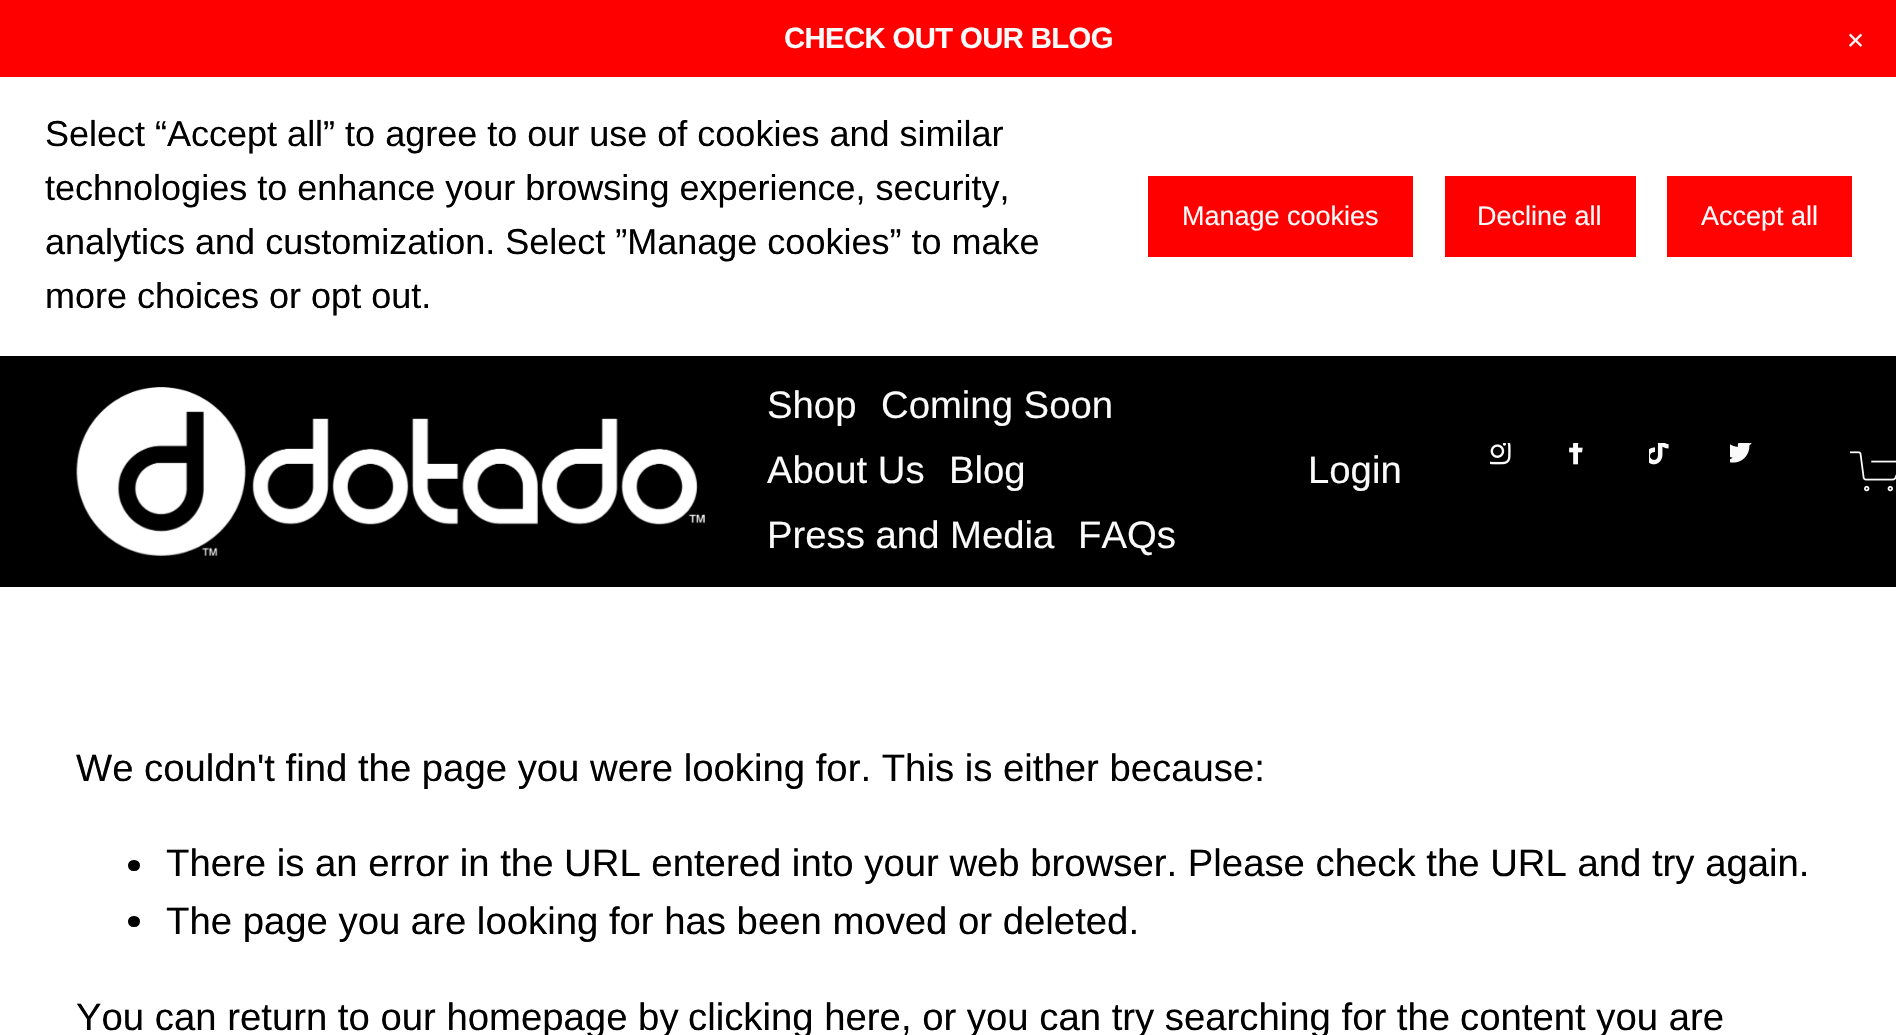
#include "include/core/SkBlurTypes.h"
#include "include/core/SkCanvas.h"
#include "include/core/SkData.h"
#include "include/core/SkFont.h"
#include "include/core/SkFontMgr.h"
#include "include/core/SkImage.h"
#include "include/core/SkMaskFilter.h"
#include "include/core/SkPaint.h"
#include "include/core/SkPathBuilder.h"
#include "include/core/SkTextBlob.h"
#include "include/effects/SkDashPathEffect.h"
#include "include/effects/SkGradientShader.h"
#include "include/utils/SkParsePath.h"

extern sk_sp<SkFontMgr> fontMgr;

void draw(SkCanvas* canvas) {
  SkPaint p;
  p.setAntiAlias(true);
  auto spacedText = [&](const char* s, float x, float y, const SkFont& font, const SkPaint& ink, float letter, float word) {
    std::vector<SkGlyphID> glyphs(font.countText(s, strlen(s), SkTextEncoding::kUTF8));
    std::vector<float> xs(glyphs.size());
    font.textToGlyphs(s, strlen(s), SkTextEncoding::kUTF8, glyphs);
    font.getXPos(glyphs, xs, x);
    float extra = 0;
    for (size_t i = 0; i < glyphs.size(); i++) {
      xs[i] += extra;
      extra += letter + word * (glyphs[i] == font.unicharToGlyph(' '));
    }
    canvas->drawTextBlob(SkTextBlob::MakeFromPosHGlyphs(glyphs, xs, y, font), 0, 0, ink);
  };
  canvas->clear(SK_ColorWHITE);
  p.setColor(SkColorSetRGB(255, 0, 0));
  canvas->drawRect(SkRect::MakeLTRB(0, 0, 1896, 77), p);
  canvas->drawRect(SkRect::MakeLTRB(1148, 176, 1413, 257), p);
  canvas->drawRect(SkRect::MakeLTRB(1445, 176, 1636, 257), p);
  p.setColor(SkColorSetRGB(255, 3, 3));
  canvas->drawRect(SkRect::MakeLTRB(1667, 176, 1852, 257), p);
  p.setColor(SK_ColorBLACK);
  canvas->drawRect(SkRect::MakeLTRB(0, 356, 1896, 587), p);
  canvas->drawImageRect(SkImages::DeferredFromEncodedData(SkData::MakeFromFileName("images/1.png")), SkRect::MakeLTRB(76, 387, 705, 556), SkSamplingOptions());
  canvas->drawImageRect(SkImages::DeferredFromEncodedData(SkData::MakeFromFileName("images/2.png")), SkRect::MakeLTRB(1490, 443, 1511, 465), SkSamplingOptions());
  canvas->drawImageRect(SkImages::DeferredFromEncodedData(SkData::MakeFromFileName("images/3.png")), SkRect::MakeLTRB(1569, 443, 1583, 465), SkSamplingOptions());
  canvas->drawImageRect(SkImages::DeferredFromEncodedData(SkData::MakeFromFileName("images/4.png")), SkRect::MakeLTRB(1649, 443, 1669, 465), SkSamplingOptions());
  canvas->drawImageRect(SkImages::DeferredFromEncodedData(SkData::MakeFromFileName("images/5.png")), SkRect::MakeLTRB(1730, 443, 1752, 463), SkSamplingOptions());
  canvas->drawImageRect(SkImages::DeferredFromEncodedData(SkData::MakeFromFileName("images/6.png")), SkRect::MakeLTRB(1850, 451, 1896, 492), SkSamplingOptions());
  canvas->drawRoundRect(SkRect::MakeLTRB(128, 860, 140, 871), 5.5f, 5.5f, p);
  canvas->drawRoundRect(SkRect::MakeLTRB(128, 916, 140, 927), 5.5f, 5.5f, p);
  SkFont font1(fontMgr->matchFamilyStyle("Liberation Sans", SkFontStyle::Bold()), 29.25f);
  font1.setSubpixel(true);
  p.setColor(SkColorSetRGB(250, 250, 250));
  spacedText("CHECK OUT OUR BLOG", 784, 48, font1, p, -0.6f, 0);
  SkFont font2(fontMgr->matchFamilyStyle("Liberation Sans", SkFontStyle::Normal()), 29.25f);
  font2.setSubpixel(true);
  canvas->drawString("×", 1847, 50, font2, p);
  SkFont font3(fontMgr->matchFamilyStyle("Liberation Sans", SkFontStyle::Normal()), 36);
  font3.setSubpixel(true);
  p.setColor(SK_ColorBLACK);
  canvas->drawString("Select “Accept all” to agree to our use of cookies and similar", 45, 146, font3, p);
  canvas->drawString("technologies to enhance your browsing experience, security,", 45, 200, font3, p);
  canvas->drawString("analytics and customization. Select ”Manage cookies” to make", 45, 254, font3, p);
  canvas->drawString("more choices or opt out.", 45, 308, font3, p);
  SkFont font4(fontMgr->matchFamilyStyle("Liberation Sans", SkFontStyle::Normal()), 27);
  font4.setSubpixel(true);
  p.setColor(SkColorSetRGB(250, 250, 250));
  canvas->drawString("Manage cookies", 1182, 225, font4, p);
  canvas->drawString("Decline all", 1477, 225, font4, p);
  canvas->drawString("Accept all", 1701, 225, font4, p);
  SkFont font5(fontMgr->matchFamilyStyle("Liberation Sans", SkFontStyle::Normal()), 38.3f);
  font5.setSubpixel(true);
  canvas->drawString("Shop", 767, 418, font5, p);
  canvas->drawString("Coming Soon", 881, 418, font5, p);
  canvas->drawString("About Us", 767, 483, font5, p);
  canvas->drawString("Blog", 949, 483, font5, p);
  canvas->drawString("Press and Media", 767, 548, font5, p);
  canvas->drawString("FAQs", 1078, 548, font5, p);
  canvas->drawString("Login", 1308, 483, font5, p);
  p.setColor(SK_ColorBLACK);
  canvas->drawString("We couldn't find the page you were looking for. This is either because:", 76, 781, font5, p);
  canvas->drawString("There is an error in the URL entered into your web browser. Please check the URL and try again.", 166, 876, font5, p);
  canvas->drawString("The page you are looking for has been moved or deleted.", 166, 934, font5, p);
  canvas->drawString("You can return to our homepage by", 76, 1030, font5, p);
  canvas->drawString("clicking here, or you can try searching for the", 688, 1030, font5, p);
  canvas->drawString("content you are", 1460, 1030, font5, p);
}
